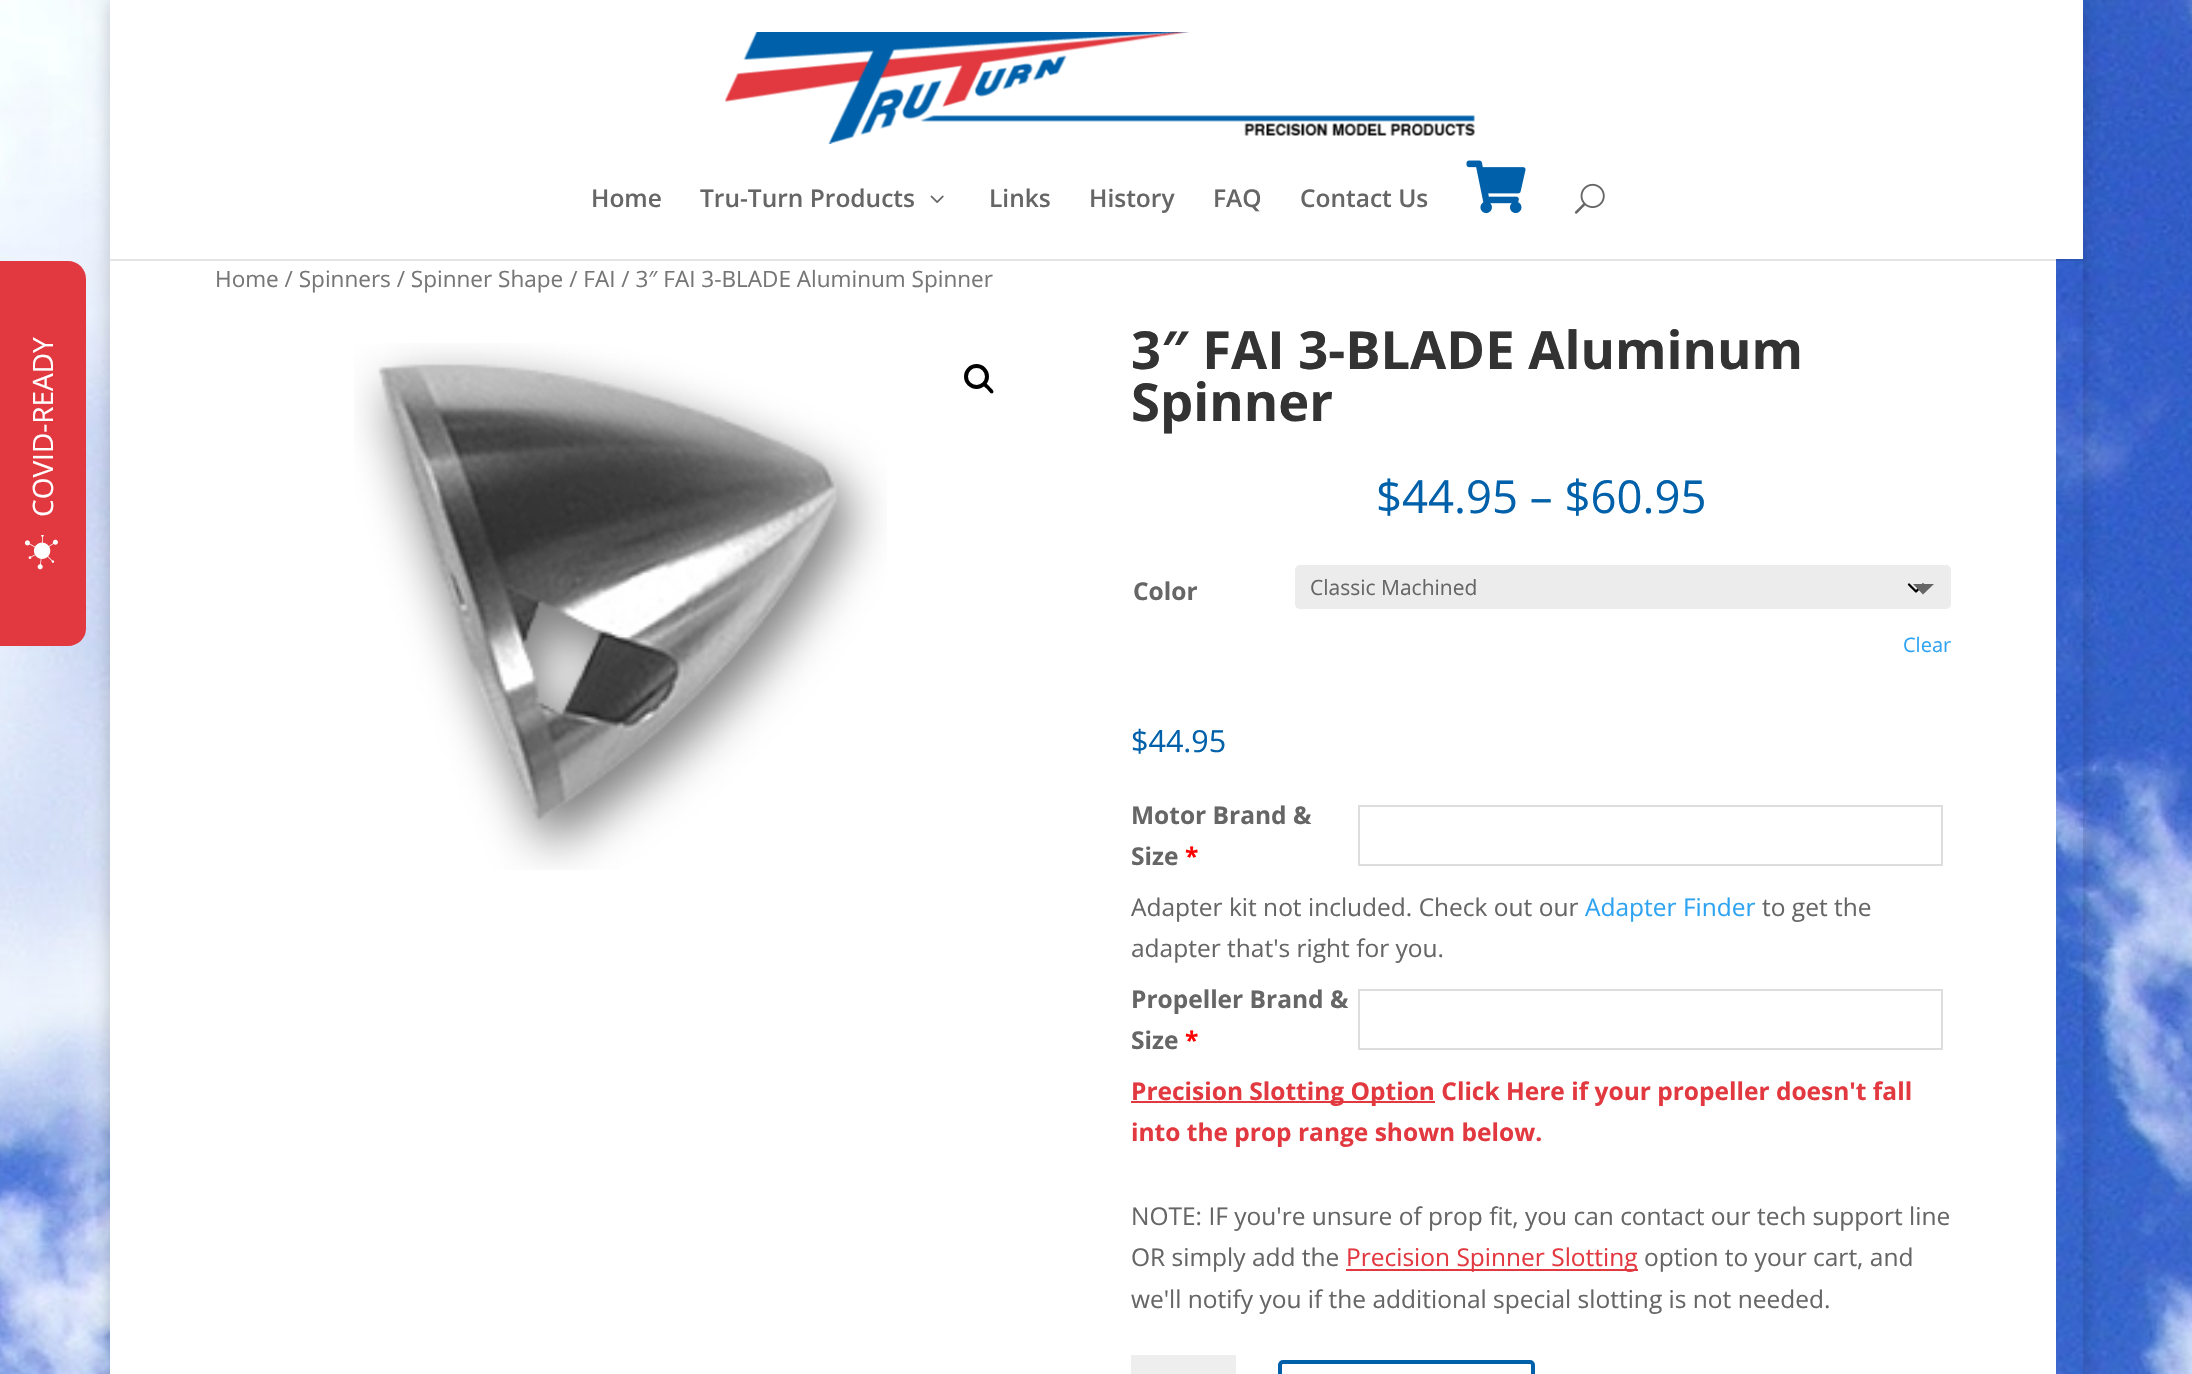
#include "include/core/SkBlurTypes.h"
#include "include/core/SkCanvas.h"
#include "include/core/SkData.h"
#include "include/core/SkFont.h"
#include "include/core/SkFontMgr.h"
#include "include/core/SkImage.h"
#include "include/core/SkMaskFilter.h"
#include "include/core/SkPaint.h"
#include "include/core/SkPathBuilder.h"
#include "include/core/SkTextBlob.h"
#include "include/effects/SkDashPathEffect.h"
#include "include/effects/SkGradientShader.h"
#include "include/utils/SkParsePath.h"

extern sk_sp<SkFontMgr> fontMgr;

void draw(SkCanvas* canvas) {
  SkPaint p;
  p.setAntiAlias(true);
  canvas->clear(SK_ColorWHITE);
  canvas->drawImageRect(SkImages::DeferredFromEncodedData(SkData::MakeFromFileName("images/1.png")), SkRect::MakeLTRB(0, 0, 2192, 1374), SkSamplingOptions());
  canvas->save();
  canvas->clipPath(SkPathBuilder(SkPathFillType::kEvenOdd).moveTo(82, 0).lineTo(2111, 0).lineTo(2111, 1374).lineTo(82, 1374).close().moveTo(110, 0).lineTo(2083, 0).lineTo(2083, 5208).lineTo(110, 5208).close().detach(), true);
  p.setColor(SkColorSetARGB(51, 0, 0, 0));
  p.setMaskFilter(SkMaskFilter::MakeBlur(kNormal_SkBlurStyle, 9));
  canvas->drawRect(SkRect::MakeLTRB(110, 0, 2083, 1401), p);
  p.setMaskFilter(nullptr);
  canvas->restore();
  p.setColor(SkColorSetRGB(226, 56, 63));
  canvas->drawPath(SkPathBuilder().moveTo(-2, 646).lineTo(-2, 261).lineTo(68, 261).cubicTo(78, 261, 86, 269, 86, 279).lineTo(86, 629).cubicTo(86, 638, 78, 646, 68, 646).close().detach(), p);
  canvas->drawImageRect(SkImages::DeferredFromEncodedData(SkData::MakeFromFileName("images/2.png")), SkRect::MakeLTRB(24, 535, 58, 570), SkSamplingOptions());
  p.setColor(SK_ColorWHITE);
  canvas->drawRect(SkRect::MakeLTRB(110, 259, 2056, 1374), p);
  p.setColor(SkColorSetARGB(26, 0, 0, 0));
  canvas->drawPath(SkPathBuilder().moveTo(110, 2).lineTo(110, 261).lineTo(2083, 261).lineTo(2083, 2).lineTo(2082, 2).lineTo(2082, 259).lineTo(110, 259).close().detach(), p);
  p.setColor(SK_ColorWHITE);
  canvas->drawRect(SkRect::MakeLTRB(110, 0, 2083, 259), p);
  canvas->drawImageRect(SkImages::DeferredFromEncodedData(SkData::MakeFromFileName("images/3.png")), SkRect::MakeLTRB(725, 32, 1476, 144), SkSamplingOptions());
  canvas->drawImageRect(SkImages::DeferredFromEncodedData(SkData::MakeFromFileName("images/4.png")), SkRect::MakeLTRB(930, 195, 944, 203), SkSamplingOptions());
  canvas->drawImageRect(SkImages::DeferredFromEncodedData(SkData::MakeFromFileName("images/5.png")), SkRect::MakeLTRB(1466, 160, 1526, 214), SkSamplingOptions());
  canvas->drawImageRect(SkImages::DeferredFromEncodedData(SkData::MakeFromFileName("images/6.png")), SkRect::MakeLTRB(1574, 183, 1605, 214), SkSamplingOptions());
  canvas->drawImageRect(SkImages::DeferredFromEncodedData(SkData::MakeFromFileName("images/7.png")), SkRect::MakeLTRB(354, 343, 887, 870), SkSamplingOptions());
  p.setStyle(SkPaint::kStroke_Style);
  p.setStrokeWidth(4);
  p.setColor(SK_ColorBLACK);
  canvas->drawCircle(976.5f, 376.5f, 10.5f, p);
  p.setStyle(SkPaint::kFill_Style);
  canvas->drawPath(SkPathBuilder().moveTo(983.5f, 383).cubicTo(985, 381, 988.5f, 385.5f, 989.5f, 386.5f).cubicTo(990.5f, 388, 995, 391, 993, 393).cubicTo(991, 395, 988, 390, 987, 389).cubicTo(986, 388, 981.5f, 385, 983.5f, 383).close().detach(), p);
  p.setColor(SkColorSetRGB(236, 236, 236));
  canvas->drawRoundRect(SkRect::MakeLTRB(1295, 565, 1951, 609), 5, 5, p);
  p.setStyle(SkPaint::kStroke_Style);
  p.setStrokeWidth(2.3f);
  p.setStrokeCap(SkPaint::kRound_Cap);
  p.setStrokeJoin(SkPaint::kRound_Join);
  p.setColor(SK_ColorBLACK);
  canvas->drawPath(SkPathBuilder().moveTo(1909, 584.5f).lineTo(1916, 591.5f).lineTo(1923, 584.5f).detach(), p);
  p.setStyle(SkPaint::kFill_Style);
  p.setColor(SkColorSetRGB(102, 102, 102));
  canvas->drawPath(SkPathBuilder().moveTo(1913, 584).lineTo(1934, 584).lineTo(1923, 594.5f).close().detach(), p);
  p.setStyle(SkPaint::kStroke_Style);
  p.setStrokeWidth(2);
  p.setStrokeCap(SkPaint::kButt_Cap);
  p.setStrokeJoin(SkPaint::kMiter_Join);
  p.setColor(SkColorSetRGB(221, 221, 221));
  canvas->drawRect(SkRect::MakeLTRB(1359, 806, 1942, 865), p);
  canvas->drawRect(SkRect::MakeLTRB(1359, 990, 1942, 1049), p);
  p.setStyle(SkPaint::kFill_Style);
  p.setColor(SkColorSetRGB(226, 56, 63));
  canvas->drawRect(SkRect::MakeLTRB(1131, 1101, 1435, 1103), p);
  canvas->drawRect(SkRect::MakeLTRB(1346, 1269, 1638, 1271), p);
  p.setColor(SkColorSetRGB(238, 238, 238));
  canvas->drawRect(SkRect::MakeLTRB(1131, 1355, 1236, 1374), p);
  p.setStyle(SkPaint::kStroke_Style);
  p.setStrokeWidth(4);
  p.setColor(SkColorSetRGB(0, 97, 170));
  canvas->drawRoundRect(SkRect::MakeLTRB(1280, 1362, 1533, 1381), 3, 3, p);
  SkFont font1(fontMgr->matchFamilyStyle("Open Sans", SkFontStyle::Normal()), 28);
  font1.setSubpixel(true);
  p.setStyle(SkPaint::kFill_Style);
  p.setColor(SK_ColorWHITE);
  canvas->save();
  canvas->rotate(-90, 53, 517);
  canvas->drawString("COVID-READY", 53, 517, font1, p);
  canvas->restore();
  SkFont font2(fontMgr->matchFamilyStyle("Open Sans", SkFontStyle(600, SkFontStyle::kNormal_Width, SkFontStyle::kUpright_Slant)), 24.5f);
  font2.setSubpixel(true);
  p.setColor(SkColorSetRGB(102, 102, 102));
  canvas->drawString("Home", 591, 207, font2, p);
  canvas->drawString("Tru-Turn Products", 700, 207, font2, p);
  canvas->drawString("Links", 989, 207, font2, p);
  canvas->drawString("History", 1089, 207, font2, p);
  canvas->drawString("FAQ", 1213, 207, font2, p);
  canvas->drawString("Contact Us", 1300, 207, font2, p);
  SkFont font3(fontMgr->matchFamilyStyle("Open Sans", SkFontStyle::Normal()), 22.55f);
  font3.setSubpixel(true);
  p.setColor(SkColorSetRGB(118, 118, 118));
  canvas->drawString("Home / Spinners / Spinner Shape / FAI / 3″ FAI 3-BLADE Aluminum Spinner", 215, 287, font3, p);
  SkFont font4(fontMgr->matchFamilyStyle("Open Sans", SkFontStyle::Bold()), 52.5f);
  font4.setSubpixel(true);
  p.setColor(SkColorSetRGB(51, 51, 51));
  canvas->drawString("3″ FAI 3-BLADE Aluminum", 1131, 369, font4, p);
  canvas->drawString("Spinner", 1131, 421, font4, p);
  SkFont font5(fontMgr->matchFamilyStyle("Open Sans", SkFontStyle::Normal()), 45.5f);
  font5.setSubpixel(true);
  p.setColor(SkColorSetRGB(0, 97, 170));
  canvas->drawString("$44.95 – $60.95", 1376, 513, font5, p);
  SkFont font6(fontMgr->matchFamilyStyle("Open Sans", SkFontStyle::Bold()), 24.5f);
  font6.setSubpixel(true);
  p.setColor(SkColorSetRGB(102, 102, 102));
  canvas->drawString("Color", 1133, 600, font6, p);
  SkFont font7(fontMgr->matchFamilyStyle("Open Sans", SkFontStyle::Normal()), 21);
  font7.setSubpixel(true);
  canvas->drawString("Classic Machined", 1310, 595, font7, p);
  SkFont font8(fontMgr->matchFamilyStyle("Open Sans", SkFontStyle::Normal()), 20);
  font8.setSubpixel(true);
  p.setColor(SkColorSetRGB(46, 163, 242));
  canvas->drawString("Clear", 1903, 652, font8, p);
  SkFont font9(fontMgr->matchFamilyStyle("Open Sans", SkFontStyle::Normal()), 30.5f);
  font9.setSubpixel(true);
  p.setColor(SkColorSetRGB(0, 97, 170));
  canvas->drawString("$44.95", 1131, 752, font9, p);
  p.setColor(SkColorSetRGB(102, 102, 102));
  canvas->drawString("Motor Brand &", 1131, 824, font6, p);
  canvas->drawString("Size", 1131, 865, font6, p);
  p.setColor(SkColorSetRGB(255, 0, 0));
  canvas->drawString("*", 1185, 865, font6, p);
  SkFont font10(fontMgr->matchFamilyStyle("Open Sans", SkFontStyle::Normal()), 24.5f);
  font10.setSubpixel(true);
  p.setColor(SkColorSetRGB(102, 102, 102));
  canvas->drawString("Adapter kit not included. Check out our", 1131, 916, font10, p);
  p.setColor(SkColorSetRGB(46, 163, 242));
  canvas->drawString("Adapter Finder", 1585, 916, font10, p);
  p.setColor(SkColorSetRGB(102, 102, 102));
  canvas->drawString("to get the", 1762, 916, font10, p);
  canvas->drawString("adapter that's right for you.", 1131, 957, font10, p);
  canvas->drawString("Propeller Brand &", 1131, 1008, font6, p);
  canvas->drawString("Size", 1131, 1049, font6, p);
  p.setColor(SkColorSetRGB(255, 0, 0));
  canvas->drawString("*", 1185, 1049, font6, p);
  p.setColor(SkColorSetRGB(226, 56, 63));
  canvas->drawString("Precision Slotting Option Click Here if your propeller doesn't fall", 1131, 1100, font6, p);
  canvas->drawString("into the prop range shown below.", 1131, 1141, font6, p);
  p.setColor(SkColorSetRGB(102, 102, 102));
  canvas->drawString("NOTE: IF you're unsure of prop fit, you can contact our tech support line", 1131, 1225, font10, p);
  canvas->drawString("OR simply add the", 1131, 1266, font10, p);
  p.setColor(SkColorSetRGB(226, 56, 63));
  canvas->drawString("Precision Spinner Slotting", 1346, 1266, font10, p);
  p.setColor(SkColorSetRGB(102, 102, 102));
  canvas->drawString("option to your cart, and", 1644, 1266, font10, p);
  canvas->drawString("we'll notify you if the additional special slotting is not needed.", 1131, 1308, font10, p);
}
